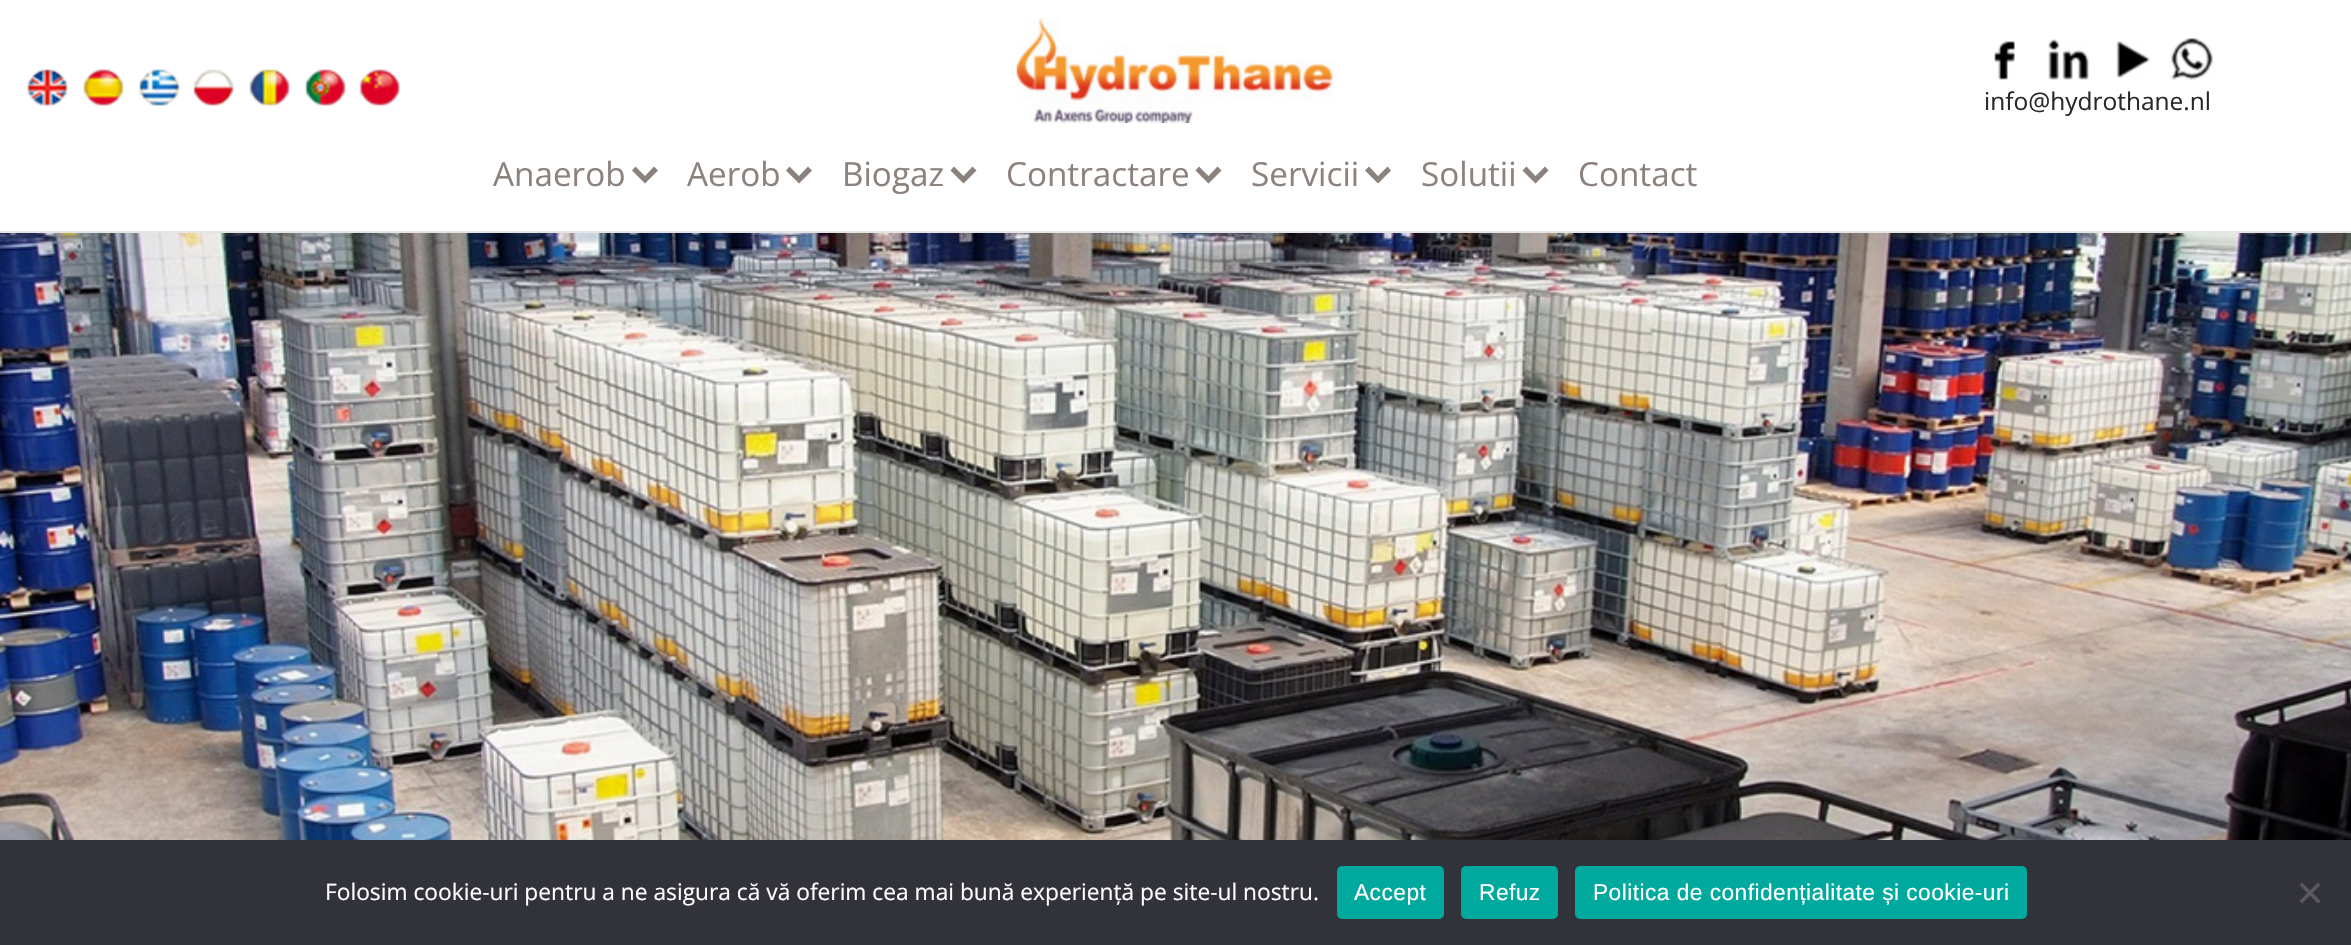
#include "include/core/SkBlurTypes.h"
#include "include/core/SkCanvas.h"
#include "include/core/SkData.h"
#include "include/core/SkFont.h"
#include "include/core/SkFontMgr.h"
#include "include/core/SkImage.h"
#include "include/core/SkMaskFilter.h"
#include "include/core/SkPaint.h"
#include "include/core/SkPathBuilder.h"
#include "include/core/SkTextBlob.h"
#include "include/effects/SkDashPathEffect.h"
#include "include/effects/SkGradientShader.h"
#include "include/utils/SkParsePath.h"

extern sk_sp<SkFontMgr> fontMgr;

void draw(SkCanvas* canvas) {
  SkPaint p;
  p.setAntiAlias(true);
  auto spacedText = [&](const char* s, float x, float y, const SkFont& font, const SkPaint& ink, float letter, float word) {
    std::vector<SkGlyphID> glyphs(font.countText(s, strlen(s), SkTextEncoding::kUTF8));
    std::vector<float> xs(glyphs.size());
    font.textToGlyphs(s, strlen(s), SkTextEncoding::kUTF8, glyphs);
    font.getXPos(glyphs, xs, x);
    float extra = 0;
    for (size_t i = 0; i < glyphs.size(); i++) {
      xs[i] += extra;
      extra += letter + word * (glyphs[i] == font.unicharToGlyph(' '));
    }
    canvas->drawTextBlob(SkTextBlob::MakeFromPosHGlyphs(glyphs, xs, y, font), 0, 0, ink);
  };
  canvas->clear(SK_ColorWHITE);
  p.setColor(SkColorSetRGB(229, 229, 229));
  canvas->drawRect(SkRect::MakeLTRB(0, 231, 2351, 233), p);
  canvas->drawImageRect(SkImages::DeferredFromEncodedData(SkData::MakeFromFileName("images/1.png")), SkRect::MakeLTRB(27, 69, 68, 106), SkSamplingOptions());
  canvas->drawImageRect(SkImages::DeferredFromEncodedData(SkData::MakeFromFileName("images/2.png")), SkRect::MakeLTRB(83, 69, 124, 106), SkSamplingOptions());
  canvas->drawImageRect(SkImages::DeferredFromEncodedData(SkData::MakeFromFileName("images/3.png")), SkRect::MakeLTRB(139, 69, 180, 106), SkSamplingOptions());
  canvas->drawImageRect(SkImages::DeferredFromEncodedData(SkData::MakeFromFileName("images/4.png")), SkRect::MakeLTRB(193, 69, 234, 106), SkSamplingOptions());
  canvas->drawImageRect(SkImages::DeferredFromEncodedData(SkData::MakeFromFileName("images/5.png")), SkRect::MakeLTRB(249, 69, 290, 106), SkSamplingOptions());
  canvas->drawImageRect(SkImages::DeferredFromEncodedData(SkData::MakeFromFileName("images/6.png")), SkRect::MakeLTRB(305, 69, 346, 106), SkSamplingOptions());
  canvas->drawImageRect(SkImages::DeferredFromEncodedData(SkData::MakeFromFileName("images/7.png")), SkRect::MakeLTRB(359, 69, 400, 106), SkSamplingOptions());
  canvas->drawImageRect(SkImages::DeferredFromEncodedData(SkData::MakeFromFileName("images/8.png")), SkRect::MakeLTRB(1016, 18, 1336, 123), SkSamplingOptions());
  canvas->drawImageRect(SkImages::DeferredFromEncodedData(SkData::MakeFromFileName("images/9.png")), SkRect::MakeLTRB(1993, 41, 2015, 80), SkSamplingOptions());
  canvas->drawImageRect(SkImages::DeferredFromEncodedData(SkData::MakeFromFileName("images/10.png")), SkRect::MakeLTRB(2048, 39, 2089, 80), SkSamplingOptions());
  canvas->drawImageRect(SkImages::DeferredFromEncodedData(SkData::MakeFromFileName("images/11.png")), SkRect::MakeLTRB(2116, 41, 2150, 78), SkSamplingOptions());
  canvas->drawImageRect(SkImages::DeferredFromEncodedData(SkData::MakeFromFileName("images/12.png")), SkRect::MakeLTRB(2170, 38, 2213, 80), SkSamplingOptions());
  p.setColor(SkColorSetRGB(140, 130, 125));
  canvas->drawPath(SkPathBuilder().moveTo(658, 170.5f).lineTo(654, 166.5f).lineTo(645, 176).lineTo(635.5f, 166.5f).lineTo(632, 170.5f).lineTo(645, 183.5f).close().detach(), p);
  canvas->drawPath(SkPathBuilder().moveTo(812, 170.5f).lineTo(808, 166.5f).lineTo(799, 176).lineTo(789.5f, 166.5f).lineTo(786, 170.5f).lineTo(799, 183.5f).close().detach(), p);
  canvas->drawPath(SkPathBuilder().moveTo(976.5f, 170.5f).lineTo(972.5f, 166.5f).lineTo(963.5f, 176).lineTo(954, 166.5f).lineTo(950.5f, 170.5f).lineTo(963.5f, 183.5f).close().detach(), p);
  canvas->drawPath(SkPathBuilder().moveTo(1221.5f, 170.5f).lineTo(1217.5f, 166.5f).lineTo(1208.5f, 176).lineTo(1199, 166.5f).lineTo(1195.5f, 170.5f).lineTo(1208.5f, 183.5f).close().detach(), p);
  canvas->drawPath(SkPathBuilder().moveTo(1391, 170.5f).lineTo(1387.5f, 166.5f).lineTo(1378, 176).lineTo(1369, 166.5f).lineTo(1365, 170.5f).lineTo(1378, 183.5f).close().detach(), p);
  canvas->drawPath(SkPathBuilder().moveTo(1548.5f, 170.5f).lineTo(1545, 166.5f).lineTo(1535.5f, 176).lineTo(1526.5f, 166.5f).lineTo(1522.5f, 170.5f).lineTo(1535.5f, 183.5f).close().detach(), p);
  canvas->drawImageRect(SkImages::DeferredFromEncodedData(SkData::MakeFromFileName("images/13.png")), SkRect::MakeLTRB(0, 233, 2351, 840), SkSamplingOptions());
  p.setColor(SkColorSetRGB(50, 50, 58));
  canvas->drawRect(SkRect::MakeLTRB(0, 840, 2351, 945), p);
  p.setColor(SkColorSetRGB(0, 169, 157));
  canvas->drawRoundRect(SkRect::MakeLTRB(1337, 866, 1444, 919), 5, 5, p);
  canvas->drawRoundRect(SkRect::MakeLTRB(1461, 866, 1558, 919), 5, 5, p);
  canvas->drawRoundRect(SkRect::MakeLTRB(1575, 866, 2027, 919), 5, 5, p);
  p.setColor(SkColorSetRGB(89, 89, 93));
  canvas->drawPath(SkPathBuilder().moveTo(2318, 882.5f).lineTo(2320.5f, 885).lineTo(2302, 903.5f).lineTo(2299.5f, 901).close().detach(), p);
  canvas->drawPath(SkPathBuilder().moveTo(2299.5f, 885).lineTo(2302, 882.5f).lineTo(2320.5f, 901).lineTo(2318, 903.5f).close().detach(), p);
  SkFont font1(fontMgr->matchFamilyStyle("Open Sans", SkFontStyle::Normal()), 24.5f);
  font1.setSubpixel(true);
  p.setColor(SkColorSetRGB(40, 40, 40));
  canvas->drawString("info@hydrothane.nl", 1984, 110, font1, p);
  SkFont font2(fontMgr->matchFamilyStyle("Open Sans", SkFontStyle::Normal()), 33.25f);
  font2.setSubpixel(true);
  p.setColor(SkColorSetRGB(140, 130, 125));
  canvas->drawString("Anaerob", 493, 186, font2, p);
  canvas->drawString("Aerob", 687, 186, font2, p);
  canvas->drawString("Biogaz", 842, 186, font2, p);
  canvas->drawString("Contractare", 1006, 186, font2, p);
  canvas->drawString("Servicii", 1251, 186, font2, p);
  canvas->drawString("Solutii", 1421, 186, font2, p);
  canvas->drawString("Contact", 1578, 186, font2, p);
  SkFont font3(fontMgr->matchFamilyStyle("Open Sans", SkFontStyle::Normal()), 22.75f);
  font3.setSubpixel(true);
  p.setColor(SK_ColorWHITE);
  canvas->drawString("Folosim cookie-uri pentru a ne asigura că vă oferim cea mai bună experiență pe site-ul nostru.", 325, 900, font3, p);
  SkFont font4(fontMgr->matchFamilyStyle("Liberation Sans", SkFontStyle::Normal()), 22.75f);
  font4.setSubpixel(true);
  spacedText("Accept", 1354, 900, font4, p, 0.45f, 0);
  spacedText("Refuz", 1479, 900, font4, p, 0.45f, 0);
  spacedText("Politica de confidențialitate și cookie-uri", 1593, 900, font4, p, 0.45f, 0);
}
